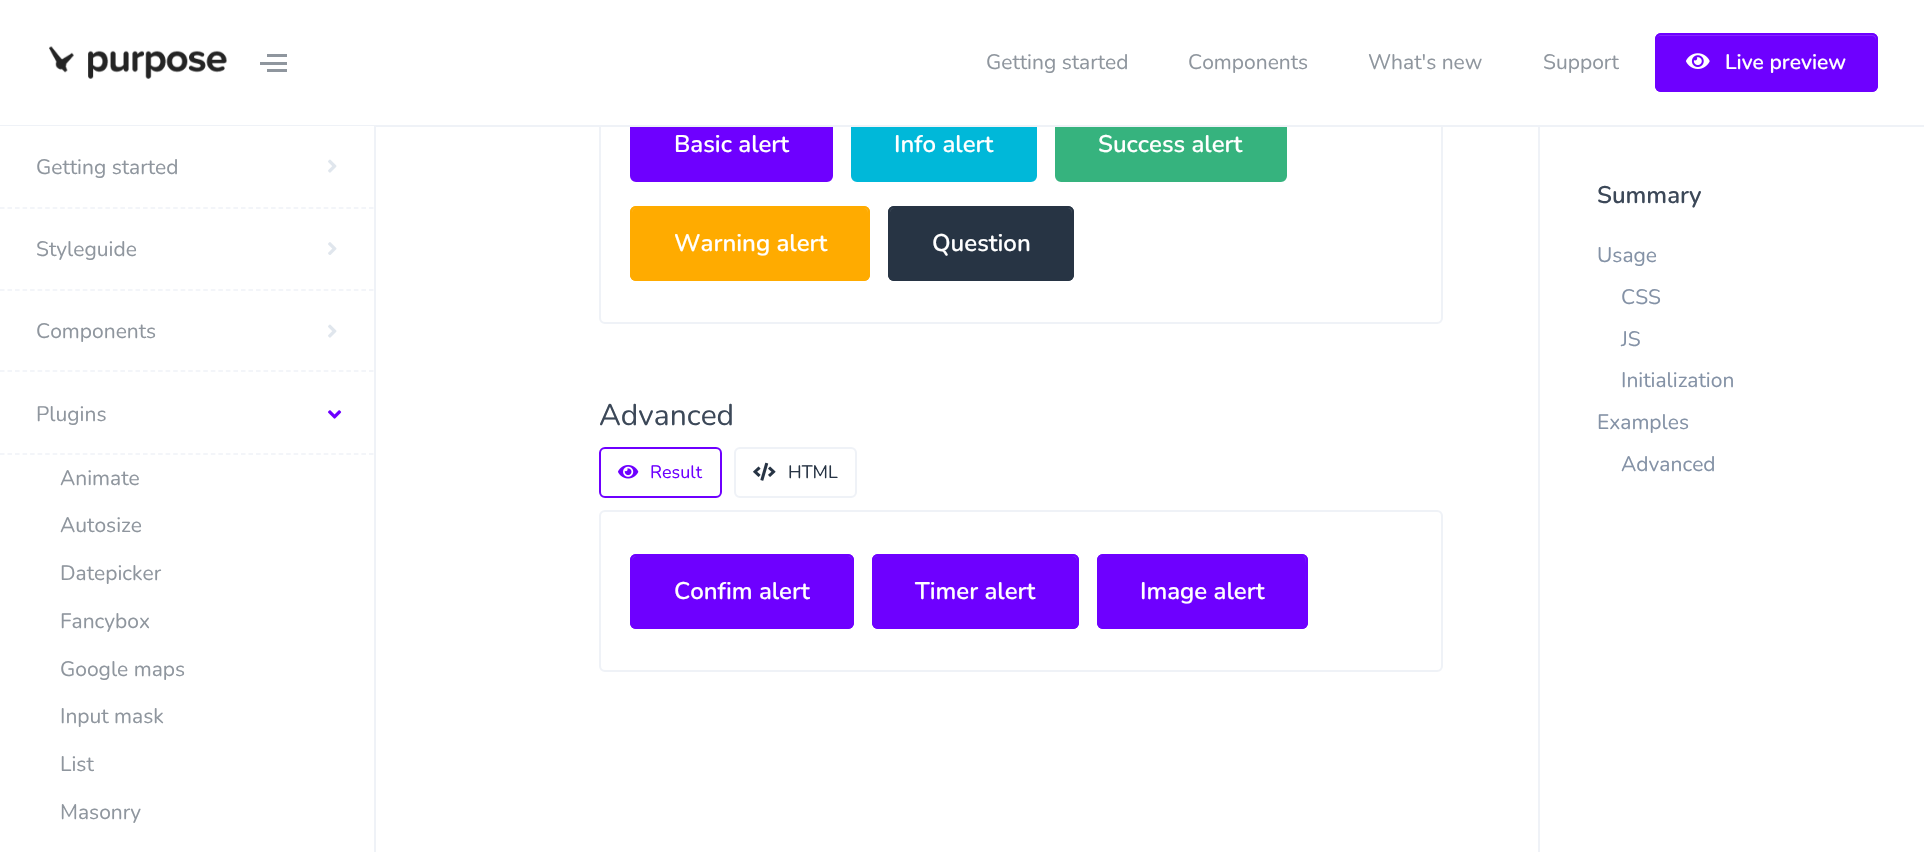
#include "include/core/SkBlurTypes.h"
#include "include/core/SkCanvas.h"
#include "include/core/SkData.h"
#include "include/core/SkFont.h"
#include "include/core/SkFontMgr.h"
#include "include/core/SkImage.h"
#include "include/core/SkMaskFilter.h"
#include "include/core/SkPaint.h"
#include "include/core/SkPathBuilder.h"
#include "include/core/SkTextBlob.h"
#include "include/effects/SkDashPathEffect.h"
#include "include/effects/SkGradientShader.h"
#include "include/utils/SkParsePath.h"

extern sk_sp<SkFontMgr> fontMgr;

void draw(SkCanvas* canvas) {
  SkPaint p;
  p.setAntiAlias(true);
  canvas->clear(SK_ColorWHITE);
  p.setStyle(SkPaint::kStroke_Style);
  p.setStrokeWidth(2);
  p.setColor(SkColorSetRGB(239, 242, 247));
  canvas->drawRoundRect(SkRect::MakeLTRB(600, 64, 1442, 323), 5, 5, p);
  p.setStyle(SkPaint::kFill_Style);
  p.setColor(SkColorSetRGB(110, 0, 255));
  canvas->drawRoundRect(SkRect::MakeLTRB(631, 108, 832, 181), 5, 5, p);
  p.setStyle(SkPaint::kStroke_Style);
  canvas->drawRoundRect(SkRect::MakeLTRB(631, 108, 832, 181), 5, 5, p);
  p.setStyle(SkPaint::kFill_Style);
  p.setColor(SkColorSetRGB(0, 184, 217));
  canvas->drawRoundRect(SkRect::MakeLTRB(852, 108, 1036, 181), 5, 5, p);
  p.setStyle(SkPaint::kStroke_Style);
  canvas->drawRoundRect(SkRect::MakeLTRB(852, 108, 1036, 181), 5, 5, p);
  p.setStyle(SkPaint::kFill_Style);
  p.setColor(SkColorSetRGB(54, 179, 126));
  canvas->drawRoundRect(SkRect::MakeLTRB(1056, 108, 1286, 181), 5, 5, p);
  p.setStyle(SkPaint::kStroke_Style);
  canvas->drawRoundRect(SkRect::MakeLTRB(1056, 108, 1286, 181), 5, 5, p);
  p.setStyle(SkPaint::kFill_Style);
  p.setColor(SkColorSetRGB(239, 242, 247));
  canvas->drawRect(SkRect::MakeLTRB(0, 125, 1924, 127), p);
  p.setColor(SK_ColorWHITE);
  canvas->drawRect(SkRect::MakeLTRB(599, 63, 1443, 125), p);
  canvas->drawImageRect(SkImages::DeferredFromEncodedData(SkData::MakeFromFileName("images/1.png")), SkRect::MakeLTRB(49, 46, 227, 79), SkSamplingOptions());
  p.setColor(SkColorSetRGB(143, 150, 158));
  canvas->drawRect(SkRect::MakeLTRB(267, 54, 287, 57), p);
  canvas->drawRect(SkRect::MakeLTRB(260, 62, 287, 65), p);
  canvas->drawRect(SkRect::MakeLTRB(267, 69, 287, 72), p);
  p.setColor(SkColorSetRGB(110, 0, 255));
  canvas->drawRoundRect(SkRect::MakeLTRB(1655, 33, 1878, 92), 6, 6, p);
  p.setColor(SkColorSetRGB(132, 38, 255));
  canvas->drawPath(SkPathBuilder().moveTo(1660, 36).lineTo(1872, 36).cubicTo(1874, 36, 1876, 38, 1876, 40).lineTo(1876, 88).cubicTo(1877, 87, 1877, 86, 1877, 85).lineTo(1877, 40).cubicTo(1877, 37, 1875, 35, 1872, 35).lineTo(1661, 35).cubicTo(1658, 35, 1656, 37, 1656, 40).cubicTo(1656, 38, 1658, 36, 1660, 36).close().detach(), p);
  p.setStyle(SkPaint::kStroke_Style);
  p.setColor(SkColorSetRGB(110, 0, 255));
  canvas->drawRoundRect(SkRect::MakeLTRB(1656, 34, 1877, 91), 5, 5, p);
  canvas->drawImageRect(SkImages::DeferredFromEncodedData(SkData::MakeFromFileName("images/2.png")), SkRect::MakeLTRB(1686, 53, 1710, 69), SkSamplingOptions());
  p.setStyle(SkPaint::kFill_Style);
  p.setColor(SK_ColorWHITE);
  canvas->drawRect(SkRect::MakeLTRB(0, 126, 374, 127), p);
  p.setColor(SkColorSetRGB(239, 242, 247));
  canvas->drawRect(SkRect::MakeLTRB(374, 126, 376, 852), p);
  p.setStyle(SkPaint::kStroke_Style);
  p.setStrokeWidth(1.5f);
  p.setPathEffect(SkDashPathEffect::Make({{4.5f, 3.03f}}, 0));
  canvas->drawPath(SkPathBuilder().moveTo(0, 208).lineTo(373.5f, 208).detach(), p);
  p.setPathEffect(nullptr);
  canvas->drawImageRect(SkImages::DeferredFromEncodedData(SkData::MakeFromFileName("images/3.png")), SkRect::MakeLTRB(328, 159, 337, 173), SkSamplingOptions());
  p.setPathEffect(SkDashPathEffect::Make({{4.5f, 3.03f}}, 0));
  canvas->drawPath(SkPathBuilder().moveTo(0, 290).lineTo(373.5f, 290).detach(), p);
  p.setPathEffect(nullptr);
  canvas->drawImageRect(SkImages::DeferredFromEncodedData(SkData::MakeFromFileName("images/4.png")), SkRect::MakeLTRB(328, 242, 337, 255), SkSamplingOptions());
  p.setPathEffect(SkDashPathEffect::Make({{4.5f, 3.03f}}, 0));
  canvas->drawPath(SkPathBuilder().moveTo(0, 371).lineTo(373.5f, 371).detach(), p);
  p.setPathEffect(nullptr);
  canvas->drawImageRect(SkImages::DeferredFromEncodedData(SkData::MakeFromFileName("images/3.png")), SkRect::MakeLTRB(328, 324, 337, 338), SkSamplingOptions());
  p.setPathEffect(SkDashPathEffect::Make({{4.5f, 3.03f}}, 0));
  canvas->drawPath(SkPathBuilder().moveTo(0, 454).lineTo(373.5f, 454).detach(), p);
  p.setPathEffect(nullptr);
  canvas->drawImageRect(SkImages::DeferredFromEncodedData(SkData::MakeFromFileName("images/5.png")), SkRect::MakeLTRB(328, 410, 342, 419), SkSamplingOptions());
  p.setStyle(SkPaint::kFill_Style);
  p.setColor(SkColorSetRGB(255, 171, 0));
  canvas->drawRoundRect(SkRect::MakeLTRB(630, 206, 870, 281), 6, 6, p);
  p.setColor(SkColorSetRGB(255, 184, 38));
  canvas->drawPath(SkPathBuilder().moveTo(636, 208).lineTo(864, 208).cubicTo(866, 208, 868, 211, 868, 213).lineTo(868, 277).cubicTo(869, 276, 869, 275, 869, 274).lineTo(869, 212).cubicTo(869, 209, 867, 207, 864, 207).lineTo(637, 207).cubicTo(634, 207, 632, 209, 632, 212).lineTo(632, 213).cubicTo(632, 211, 634, 208, 636, 208).close().detach(), p);
  p.setStyle(SkPaint::kStroke_Style);
  p.setStrokeWidth(2);
  p.setColor(SkColorSetRGB(255, 171, 0));
  canvas->drawRoundRect(SkRect::MakeLTRB(631, 207, 869, 280), 5, 5, p);
  p.setStyle(SkPaint::kFill_Style);
  p.setColor(SkColorSetRGB(39, 52, 68));
  canvas->drawRoundRect(SkRect::MakeLTRB(888, 206, 1074, 281), 6, 6, p);
  p.setColor(SkColorSetRGB(71, 82, 96));
  canvas->drawPath(SkPathBuilder().moveTo(894, 208).lineTo(1039, 208).cubicTo(1077, 208, 1072, 201, 1072, 234).lineTo(1072, 277).cubicTo(1073, 276, 1073, 275, 1073, 274).lineTo(1073, 212).cubicTo(1073, 209, 1071, 207, 1068, 207).lineTo(895, 207).cubicTo(892, 207, 890, 209, 890, 212).lineTo(890, 213).cubicTo(890, 211, 892, 208, 894, 208).close().detach(), p);
  p.setStyle(SkPaint::kStroke_Style);
  p.setColor(SkColorSetRGB(39, 52, 68));
  canvas->drawRoundRect(SkRect::MakeLTRB(889, 207, 1073, 280), 5, 5, p);
  p.setColor(SkColorSetRGB(110, 0, 255));
  canvas->drawRoundRect(SkRect::MakeLTRB(600, 448, 721, 497), 5, 5, p);
  canvas->drawImageRect(SkImages::DeferredFromEncodedData(SkData::MakeFromFileName("images/6.png")), SkRect::MakeLTRB(618, 465, 639, 479), SkSamplingOptions());
  p.setColor(SkColorSetRGB(239, 242, 247));
  canvas->drawRoundRect(SkRect::MakeLTRB(735, 448, 856, 497), 5, 5, p);
  canvas->drawImageRect(SkImages::DeferredFromEncodedData(SkData::MakeFromFileName("images/7.png")), SkRect::MakeLTRB(753, 462, 776, 481), SkSamplingOptions());
  canvas->drawRoundRect(SkRect::MakeLTRB(600, 511, 1442, 671), 5, 5, p);
  p.setStyle(SkPaint::kFill_Style);
  p.setColor(SkColorSetRGB(110, 0, 255));
  canvas->drawRoundRect(SkRect::MakeLTRB(630, 554, 854, 629), 6, 6, p);
  p.setColor(SkColorSetRGB(132, 38, 255));
  canvas->drawPath(SkPathBuilder().moveTo(636, 556).lineTo(848, 556).cubicTo(850, 556, 852, 559, 852, 561).cubicTo(852, 558, 850, 555, 847, 555).lineTo(636, 555).cubicTo(633, 556, 632, 558, 632, 561).cubicTo(632, 559, 634, 556, 636, 556).close().detach(), p);
  p.setStyle(SkPaint::kStroke_Style);
  p.setColor(SkColorSetRGB(110, 0, 255));
  canvas->drawRoundRect(SkRect::MakeLTRB(631, 555, 853, 628), 5, 5, p);
  p.setStyle(SkPaint::kFill_Style);
  canvas->drawRoundRect(SkRect::MakeLTRB(872, 554, 1079, 629), 6, 6, p);
  p.setColor(SkColorSetRGB(132, 38, 255));
  canvas->drawPath(SkPathBuilder().moveTo(878, 556).lineTo(1072, 556).cubicTo(1075, 556, 1077, 559, 1077, 561).lineTo(1077, 560).cubicTo(1077, 557, 1075, 555, 1072, 555).lineTo(878, 555).cubicTo(875, 555, 873, 557, 873, 560).lineTo(873, 561).cubicTo(873, 559, 875, 556, 878, 556).close().detach(), p);
  p.setStyle(SkPaint::kStroke_Style);
  p.setColor(SkColorSetRGB(110, 0, 255));
  canvas->drawRoundRect(SkRect::MakeLTRB(873, 555, 1078, 628), 5, 5, p);
  p.setStyle(SkPaint::kFill_Style);
  canvas->drawRoundRect(SkRect::MakeLTRB(1097, 554, 1308, 629), 6, 6, p);
  p.setColor(SkColorSetRGB(132, 38, 255));
  canvas->drawPath(SkPathBuilder().moveTo(1102, 556).lineTo(1269, 556).cubicTo(1310, 556, 1306, 547, 1306, 582).lineTo(1306, 625).cubicTo(1307, 624, 1307, 623, 1307, 622).lineTo(1307, 560).cubicTo(1307, 557, 1305, 555, 1302, 555).lineTo(1103, 555).cubicTo(1100, 555, 1098, 557, 1098, 560).lineTo(1098, 561).cubicTo(1098, 559, 1100, 556, 1102, 556).close().detach(), p);
  p.setStyle(SkPaint::kStroke_Style);
  p.setColor(SkColorSetRGB(110, 0, 255));
  canvas->drawRoundRect(SkRect::MakeLTRB(1098, 555, 1307, 628), 5, 5, p);
  p.setStyle(SkPaint::kFill_Style);
  p.setColor(SkColorSetRGB(239, 242, 247));
  canvas->drawRect(SkRect::MakeLTRB(1538, 127, 1540, 852), p);
  SkFont font1(fontMgr->matchFamilyStyle("Nunito", SkFontStyle::Normal()), 21);
  font1.setSubpixel(true);
  p.setColor(SkColorSetRGB(143, 150, 158));
  canvas->drawString("Getting started", 986, 69, font1, p);
  canvas->drawString("Components", 1188, 69, font1, p);
  canvas->drawString("What's new", 1368, 69, font1, p);
  canvas->drawString("Support", 1543, 69, font1, p);
  SkFont font2(fontMgr->matchFamilyStyle("Nunito", SkFontStyle(600, SkFontStyle::kNormal_Width, SkFontStyle::kUpright_Slant)), 21);
  font2.setSubpixel(true);
  p.setColor(SK_ColorWHITE);
  canvas->drawString("Live preview", 1725, 69, font2, p);
  p.setColor(SkColorSetRGB(143, 150, 158));
  canvas->drawString("Getting started", 36, 174, font1, p);
  canvas->drawString("Styleguide", 36, 256, font1, p);
  canvas->drawString("Components", 36, 338, font1, p);
  canvas->drawString("Plugins", 36, 421, font1, p);
  canvas->drawString("Animate", 60, 485, font1, p);
  canvas->drawString("Autosize", 60, 532, font1, p);
  canvas->drawString("Datepicker", 60, 580, font1, p);
  canvas->drawString("Fancybox", 60, 628, font1, p);
  canvas->drawString("Google maps", 60, 676, font1, p);
  canvas->drawString("Input mask", 60, 723, font1, p);
  canvas->drawString("List", 60, 771, font1, p);
  canvas->drawString("Masonry", 60, 819, font1, p);
  SkFont font3(fontMgr->matchFamilyStyle("Nunito", SkFontStyle(600, SkFontStyle::kNormal_Width, SkFontStyle::kUpright_Slant)), 24);
  font3.setSubpixel(true);
  p.setColor(SK_ColorWHITE);
  canvas->drawString("Basic alert", 674, 152, font3, p);
  canvas->drawString("Info alert", 894, 152, font3, p);
  canvas->drawString("Success alert", 1098, 152, font3, p);
  canvas->drawString("Warning alert", 674, 251, font3, p);
  canvas->drawString("Question", 932, 251, font3, p);
  SkFont font4(fontMgr->matchFamilyStyle("Nunito", SkFontStyle::Normal()), 30);
  font4.setSubpixel(true);
  p.setColor(SkColorSetRGB(60, 72, 88));
  canvas->drawString("Advanced", 599, 425, font4, p);
  SkFont font5(fontMgr->matchFamilyStyle("Nunito", SkFontStyle::Normal()), 18);
  font5.setSubpixel(true);
  p.setColor(SkColorSetRGB(110, 0, 255));
  canvas->drawString("Result", 650, 478, font5, p);
  p.setColor(SkColorSetRGB(39, 52, 68));
  canvas->drawString("HTML", 788, 478, font5, p);
  p.setColor(SK_ColorWHITE);
  canvas->drawString("Confim alert", 674, 599, font3, p);
  canvas->drawString("Timer alert", 915, 599, font3, p);
  canvas->drawString("Image alert", 1140, 599, font3, p);
  p.setColor(SkColorSetRGB(60, 72, 88));
  canvas->drawString("Summary", 1597, 203, font3, p);
  p.setColor(SkColorSetRGB(132, 146, 166));
  canvas->drawString("Usage", 1597, 262, font1, p);
  canvas->drawString("CSS", 1621, 304, font1, p);
  canvas->drawString("JS", 1621, 346, font1, p);
  canvas->drawString("Initialization", 1621, 387, font1, p);
  canvas->drawString("Examples", 1597, 429, font1, p);
  canvas->drawString("Advanced", 1621, 471, font1, p);
}
